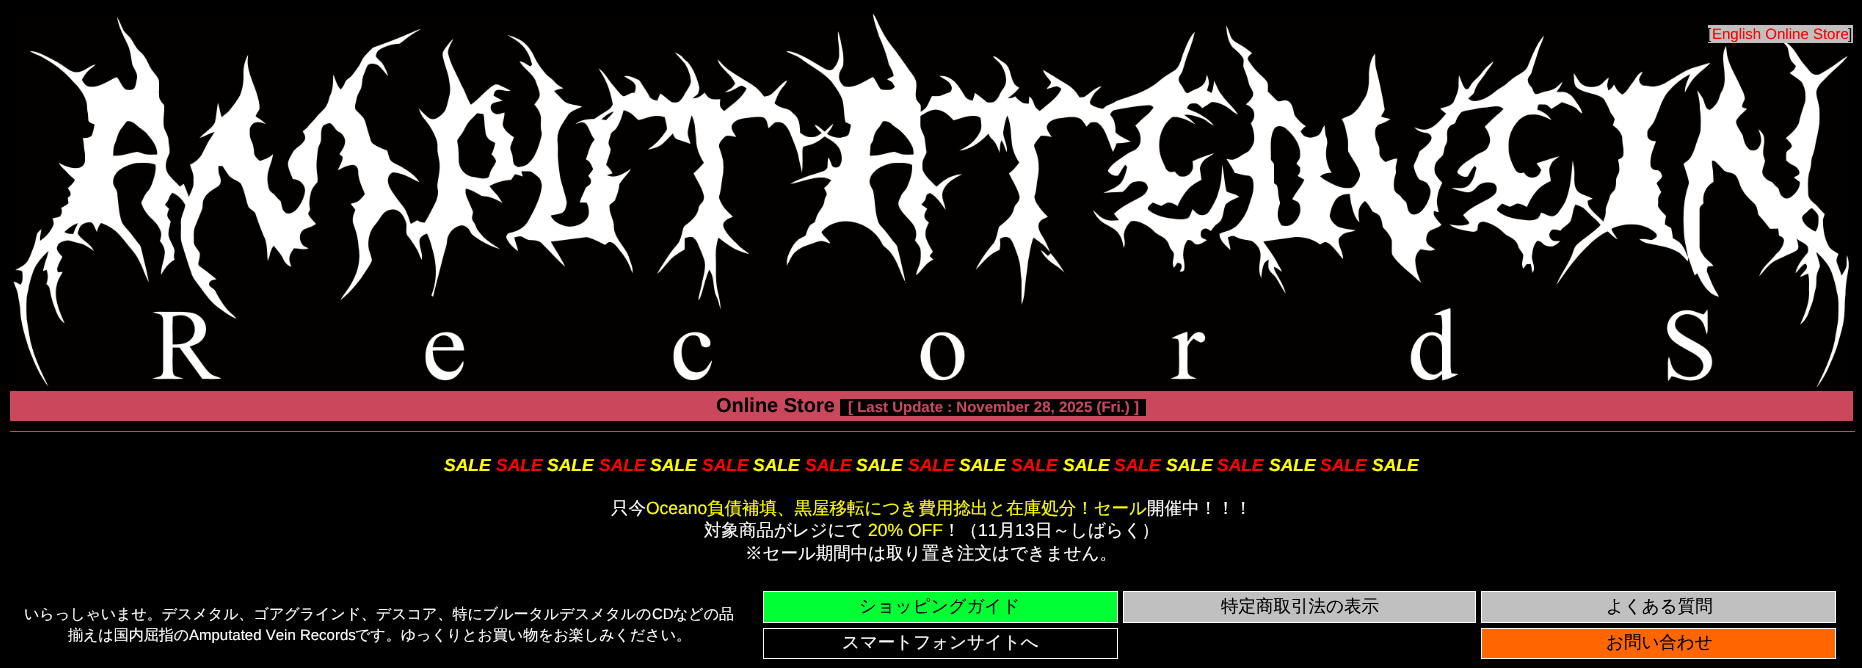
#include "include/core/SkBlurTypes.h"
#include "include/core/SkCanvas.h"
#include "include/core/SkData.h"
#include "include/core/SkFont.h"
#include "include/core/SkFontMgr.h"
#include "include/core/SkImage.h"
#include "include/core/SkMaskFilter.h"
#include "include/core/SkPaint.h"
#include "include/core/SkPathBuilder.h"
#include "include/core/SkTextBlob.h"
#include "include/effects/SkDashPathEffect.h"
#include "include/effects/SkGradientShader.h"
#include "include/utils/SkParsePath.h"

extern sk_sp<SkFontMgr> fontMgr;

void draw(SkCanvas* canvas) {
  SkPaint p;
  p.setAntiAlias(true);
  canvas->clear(SK_ColorBLACK);
  canvas->drawImageRect(SkImages::DeferredFromEncodedData(SkData::MakeFromFileName("images/1.png")), SkRect::MakeLTRB(13, 13, 1849, 388), SkSamplingOptions());
  p.setColor(SkColorSetRGB(192, 192, 192));
  canvas->drawRect(SkRect::MakeLTRB(1708, 25, 1853, 43), p);
  p.setColor(SkColorSetRGB(202, 71, 92));
  canvas->drawRect(SkRect::MakeLTRB(10, 391, 1853, 421), p);
  p.setColor(SK_ColorBLACK);
  canvas->drawRect(SkRect::MakeLTRB(840, 399, 1146, 416), p);
  p.setColor(SkColorSetRGB(202, 71, 92));
  canvas->drawRect(SkRect::MakeLTRB(10, 431, 1855, 432), p);
  p.setColor(SkColorSetRGB(0, 255, 51));
  canvas->drawRect(SkRect::MakeLTRB(763.5f, 591.5f, 1117.5f, 622.5f), p);
  p.setStyle(SkPaint::kStroke_Style);
  p.setStrokeWidth(1);
  p.setColor(SK_ColorWHITE);
  canvas->drawRect(SkRect::MakeLTRB(763.5f, 591.5f, 1117.5f, 622.5f), p);
  p.setStyle(SkPaint::kFill_Style);
  p.setColor(SkColorSetRGB(192, 192, 192));
  canvas->drawRect(SkRect::MakeLTRB(1123.5f, 591.5f, 1475.5f, 622.5f), p);
  p.setStyle(SkPaint::kStroke_Style);
  p.setColor(SK_ColorWHITE);
  canvas->drawRect(SkRect::MakeLTRB(1123.5f, 591.5f, 1475.5f, 622.5f), p);
  p.setStyle(SkPaint::kFill_Style);
  p.setColor(SkColorSetRGB(192, 192, 192));
  canvas->drawRect(SkRect::MakeLTRB(1481.5f, 591.5f, 1835.5f, 622.5f), p);
  p.setStyle(SkPaint::kStroke_Style);
  p.setColor(SK_ColorWHITE);
  canvas->drawRect(SkRect::MakeLTRB(1481.5f, 591.5f, 1835.5f, 622.5f), p);
  canvas->drawRect(SkRect::MakeLTRB(763.5f, 628.5f, 1117.5f, 658.5f), p);
  p.setStyle(SkPaint::kFill_Style);
  p.setColor(SkColorSetRGB(255, 102, 0));
  canvas->drawRect(SkRect::MakeLTRB(1481.5f, 628.5f, 1835.5f, 658.5f), p);
  p.setStyle(SkPaint::kStroke_Style);
  p.setColor(SK_ColorWHITE);
  canvas->drawRect(SkRect::MakeLTRB(1481.5f, 628.5f, 1835.5f, 658.5f), p);
  SkFont font1(fontMgr->matchFamilyStyle("Liberation Sans", SkFontStyle::Normal()), 15);
  font1.setSubpixel(true);
  p.setStyle(SkPaint::kFill_Style);
  p.setColor(SK_ColorBLACK);
  canvas->drawString("[", 1707, 39, font1, p);
  p.setColor(SkColorSetRGB(255, 0, 0));
  canvas->drawString("English Online Store", 1712, 39, font1, p);
  p.setColor(SK_ColorBLACK);
  canvas->drawString("]", 1848, 39, font1, p);
  SkFont font2(fontMgr->matchFamilyStyle("Liberation Sans", SkFontStyle::Bold()), 20);
  font2.setSubpixel(true);
  canvas->drawString("Online Store", 716, 412, font2, p);
  SkFont font3(fontMgr->matchFamilyStyle("Liberation Sans", SkFontStyle::Bold()), 15);
  font3.setSubpixel(true);
  p.setColor(SkColorSetRGB(202, 71, 92));
  canvas->drawString("[ Last Update : November 28, 2025 (Fri.) ]", 848, 412, font3, p);
  SkFont font4(fontMgr->matchFamilyStyle("Liberation Sans", SkFontStyle::BoldItalic()), 17.5f);
  font4.setSubpixel(true);
  p.setColor(SkColorSetRGB(255, 255, 0));
  canvas->drawString("SALE", 444, 471, font4, p);
  p.setColor(SkColorSetRGB(255, 0, 0));
  canvas->drawString("SALE", 496, 471, font4, p);
  p.setColor(SkColorSetRGB(255, 255, 0));
  canvas->drawString("SALE", 547, 471, font4, p);
  p.setColor(SkColorSetRGB(255, 0, 0));
  canvas->drawString("SALE", 599, 471, font4, p);
  p.setColor(SkColorSetRGB(255, 255, 0));
  canvas->drawString("SALE", 650, 471, font4, p);
  p.setColor(SkColorSetRGB(255, 0, 0));
  canvas->drawString("SALE", 702, 471, font4, p);
  p.setColor(SkColorSetRGB(255, 255, 0));
  canvas->drawString("SALE", 753, 471, font4, p);
  p.setColor(SkColorSetRGB(255, 0, 0));
  canvas->drawString("SALE", 805, 471, font4, p);
  p.setColor(SkColorSetRGB(255, 255, 0));
  canvas->drawString("SALE", 856, 471, font4, p);
  p.setColor(SkColorSetRGB(255, 0, 0));
  canvas->drawString("SALE", 908, 471, font4, p);
  p.setColor(SkColorSetRGB(255, 255, 0));
  canvas->drawString("SALE", 959, 471, font4, p);
  p.setColor(SkColorSetRGB(255, 0, 0));
  canvas->drawString("SALE", 1011, 471, font4, p);
  p.setColor(SkColorSetRGB(255, 255, 0));
  canvas->drawString("SALE", 1063, 471, font4, p);
  p.setColor(SkColorSetRGB(255, 0, 0));
  canvas->drawString("SALE", 1114, 471, font4, p);
  p.setColor(SkColorSetRGB(255, 255, 0));
  canvas->drawString("SALE", 1166, 471, font4, p);
  p.setColor(SkColorSetRGB(255, 0, 0));
  canvas->drawString("SALE", 1217, 471, font4, p);
  p.setColor(SkColorSetRGB(255, 255, 0));
  canvas->drawString("SALE", 1269, 471, font4, p);
  p.setColor(SkColorSetRGB(255, 0, 0));
  canvas->drawString("SALE", 1320, 471, font4, p);
  p.setColor(SkColorSetRGB(255, 255, 0));
  canvas->drawString("SALE", 1372, 471, font4, p);
  SkFont font5(fontMgr->matchFamilyStyle("WenQuanYi Zen Hei", SkFontStyle(500, SkFontStyle::kNormal_Width, SkFontStyle::kUpright_Slant)), 17.5f);
  font5.setSubpixel(true);
  p.setColor(SK_ColorWHITE);
  canvas->drawString("只今", 611, 514, font5, p);
  SkFont font6(fontMgr->matchFamilyStyle("Liberation Sans", SkFontStyle::Normal()), 17.5f);
  font6.setSubpixel(true);
  p.setColor(SkColorSetRGB(255, 255, 0));
  canvas->drawString("Oceano", 646, 514, font6, p);
  canvas->drawString("負債補填、黒屋移転につき費用捻出と在庫処分！セール", 707, 514, font5, p);
  p.setColor(SK_ColorWHITE);
  canvas->drawString("開催中！！！", 1147, 514, font5, p);
  canvas->drawString("対象商品がレジにて", 704, 536, font5, p);
  p.setColor(SkColorSetRGB(255, 255, 0));
  canvas->drawString("20% OFF", 868, 536, font6, p);
  p.setColor(SK_ColorWHITE);
  canvas->drawString("！（", 943, 536, font5, p);
  canvas->drawString("11", 978, 536, font6, p);
  canvas->drawString("月", 998, 536, font5, p);
  canvas->drawString("13", 1015, 536, font6, p);
  canvas->drawString("日～しばらく）", 1035, 536, font5, p);
  canvas->drawString("※セール期間中は取り置き注文はできません。", 745, 559, font5, p);
  SkFont font7(fontMgr->matchFamilyStyle("WenQuanYi Zen Hei", SkFontStyle(500, SkFontStyle::kNormal_Width, SkFontStyle::kUpright_Slant)), 15);
  font7.setSubpixel(true);
  canvas->drawString("いらっしゃいませ。デスメタル、ゴアグラインド、デスコア、特にブルータルデスメタルの", 24, 619, font7, p);
  canvas->drawString("CD", 652, 619, font1, p);
  canvas->drawString("などの品", 673, 619, font7, p);
  canvas->drawString("揃えは国内屈指の", 68, 640, font7, p);
  canvas->drawString("Amputated Vein Records", 189, 640, font1, p);
  canvas->drawString("です。ゆっくりとお買い物をお楽しみください。", 355, 640, font7, p);
  p.setColor(SK_ColorBLACK);
  canvas->drawString("ショッピングガイド", 859, 612, font5, p);
  canvas->drawString("特定商取引法の表示", 1221, 612, font5, p);
  canvas->drawString("よくある質問", 1606, 612, font5, p);
  p.setColor(SK_ColorWHITE);
  canvas->drawString("スマートフォンサイトへ", 842, 648, font5, p);
  p.setColor(SK_ColorBLACK);
  canvas->drawString("お問い合わせ", 1606, 648, font5, p);
}
